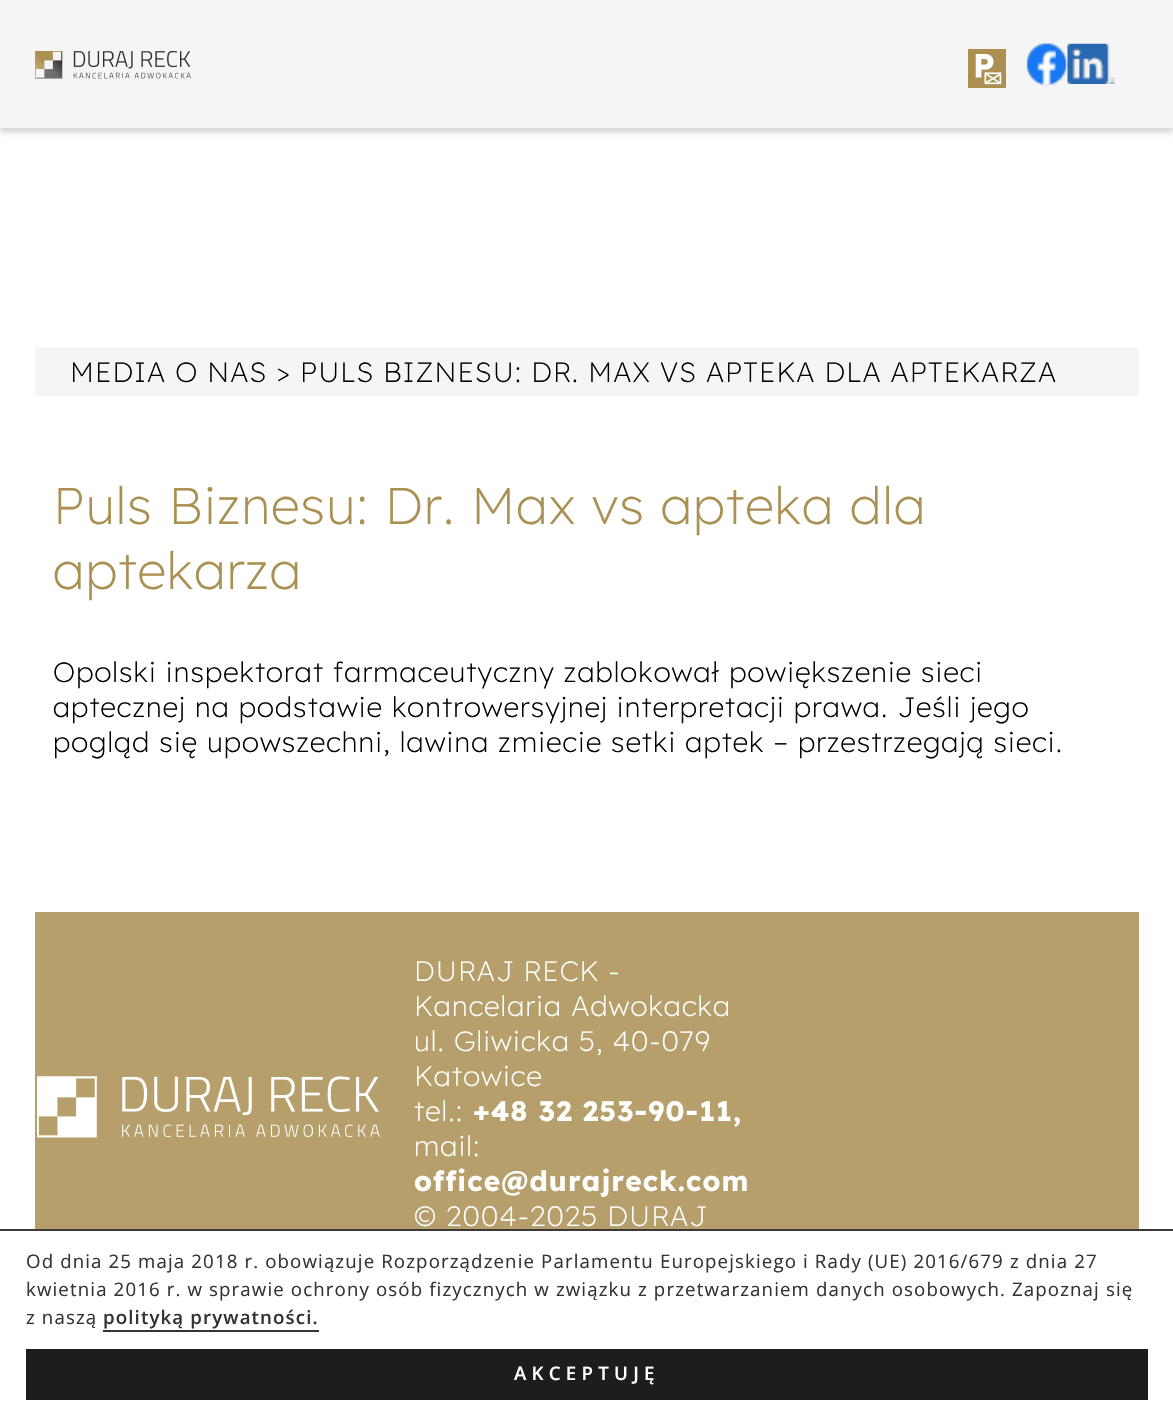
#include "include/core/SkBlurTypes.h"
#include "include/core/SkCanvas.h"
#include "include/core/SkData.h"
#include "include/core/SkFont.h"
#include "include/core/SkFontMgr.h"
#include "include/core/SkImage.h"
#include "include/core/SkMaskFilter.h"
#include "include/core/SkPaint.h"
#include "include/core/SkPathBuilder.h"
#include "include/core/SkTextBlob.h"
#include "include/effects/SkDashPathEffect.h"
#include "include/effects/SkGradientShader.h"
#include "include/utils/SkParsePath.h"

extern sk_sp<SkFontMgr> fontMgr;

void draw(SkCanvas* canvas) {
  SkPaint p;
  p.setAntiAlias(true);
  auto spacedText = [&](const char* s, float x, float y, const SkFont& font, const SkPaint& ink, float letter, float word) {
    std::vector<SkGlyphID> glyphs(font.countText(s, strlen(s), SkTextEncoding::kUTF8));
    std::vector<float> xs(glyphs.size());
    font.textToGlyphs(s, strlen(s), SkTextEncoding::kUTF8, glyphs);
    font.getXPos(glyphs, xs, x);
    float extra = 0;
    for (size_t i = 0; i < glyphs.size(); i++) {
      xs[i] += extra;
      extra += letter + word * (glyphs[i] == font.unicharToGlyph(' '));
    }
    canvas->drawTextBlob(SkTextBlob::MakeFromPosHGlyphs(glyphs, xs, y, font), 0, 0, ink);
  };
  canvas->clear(SK_ColorWHITE);
  p.setColor(SkColorSetARGB(38, 0, 0, 0));
  p.setMaskFilter(SkMaskFilter::MakeBlur(kNormal_SkBlurStyle, 2.5f));
  canvas->drawRect(SkRect::MakeLTRB(0, 5, 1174, 133), p);
  p.setMaskFilter(nullptr);
  p.setColor(SkColorSetRGB(245, 245, 245));
  canvas->drawRect(SkRect::MakeLTRB(0, 0, 1173, 128), p);
  canvas->drawImageRect(SkImages::DeferredFromEncodedData(SkData::MakeFromFileName("images/1.png")), SkRect::MakeLTRB(35, 51, 191, 79), SkSamplingOptions());
  canvas->drawImageRect(SkImages::DeferredFromEncodedData(SkData::MakeFromFileName("images/2.png")), SkRect::MakeLTRB(968, 49, 1006, 88), SkSamplingOptions());
  canvas->drawImageRect(SkImages::DeferredFromEncodedData(SkData::MakeFromFileName("images/3.png")), SkRect::MakeLTRB(1026, 43, 1068, 86), SkSamplingOptions());
  canvas->drawImageRect(SkImages::DeferredFromEncodedData(SkData::MakeFromFileName("images/4.png")), SkRect::MakeLTRB(1067, 43, 1115, 84), SkSamplingOptions());
  canvas->drawRect(SkRect::MakeLTRB(35, 347, 1139, 396), p);
  p.setColor(SkColorSetRGB(182, 159, 107));
  canvas->drawRect(SkRect::MakeLTRB(35, 912, 1139, 1229), p);
  canvas->drawImageRect(SkImages::DeferredFromEncodedData(SkData::MakeFromFileName("images/5.png")), SkRect::MakeLTRB(37, 1076, 380, 1138), SkSamplingOptions());
  p.setColor(SkColorSetRGB(59, 57, 57));
  canvas->drawRect(SkRect::MakeLTRB(0, 1229, 1173, 1231), p);
  p.setColor(SkColorSetRGB(51, 51, 51));
  canvas->drawRect(SkRect::MakeLTRB(103, 1330, 319, 1332), p);
  p.setColor(SkColorSetRGB(29, 29, 29));
  canvas->drawRect(SkRect::MakeLTRB(26, 1349, 1148, 1400), p);
  SkFont font1(fontMgr->matchFamilyStyle("Lexend Deca", SkFontStyle(200, SkFontStyle::kNormal_Width, SkFontStyle::kUpright_Slant)), 28);
  font1.setSubpixel(true);
  p.setColor(SK_ColorBLACK);
  spacedText("MEDIA O NAS > PULS BIZNESU: DR. MAX VS APTEKA DLA APTEKARZA", 70, 382, font1, p, 1.12f, 0);
  SkFont font2(fontMgr->matchFamilyStyle("Lexend Deca", SkFontStyle(200, SkFontStyle::kNormal_Width, SkFontStyle::kUpright_Slant)), 51.6f);
  font2.setSubpixel(true);
  p.setColor(SkColorSetRGB(170, 144, 82));
  spacedText("Puls Biznesu: Dr. Max vs apteka dla", 53, 524, font2, p, 1.12f, 0);
  spacedText("aptekarza", 53, 589, font2, p, 1.12f, 0);
  p.setColor(SK_ColorBLACK);
  spacedText("Opolski inspektorat farmaceutyczny zablokował powiększenie sieci", 53, 682, font1, p, 1.12f, 0);
  spacedText("aptecznej na podstawie kontrowersyjnej interpretacji prawa. Jeśli jego", 53, 717, font1, p, 1.12f, 0);
  spacedText("pogląd się upowszechni, lawina zmiecie setki aptek – przestrzegają sieci.", 53, 752, font1, p, 1.12f, 0);
  p.setColor(SK_ColorWHITE);
  spacedText("DURAJ RECK -", 414, 981, font1, p, 1.12f, 0);
  spacedText("Kancelaria Adwokacka", 414, 1016, font1, p, 1.12f, 0);
  spacedText("ul. Gliwicka 5, 40-079", 414, 1051, font1, p, 1.12f, 0);
  spacedText("Katowice", 414, 1086, font1, p, 1.12f, 0);
  spacedText("tel.:", 414, 1121, font1, p, 1.12f, 0);
  SkFont font3(fontMgr->matchFamilyStyle("Lexend Deca", SkFontStyle::Bold()), 28);
  font3.setSubpixel(true);
  spacedText("+48 32 253-90-11,", 473, 1121, font3, p, 1.12f, 0);
  spacedText("mail:", 414, 1156, font1, p, 1.12f, 0);
  spacedText("office@durajreck.com", 414, 1191, font3, p, 1.12f, 0);
  spacedText("© 2004-2025 DURAJ", 414, 1226, font1, p, 1.12f, 0);
  SkFont font4(fontMgr->matchFamilyStyle("Open Sans", SkFontStyle::Normal()), 18.67f);
  font4.setSubpixel(true);
  p.setColor(SkColorSetRGB(51, 51, 51));
  spacedText("Od dnia 25 maja 2018 r. obowiązuje Rozporządzenie Parlamentu Europejskiego i Rady (UE) 2016/679 z dnia 27", 26, 1268, font4, p, 1.12f, 0);
  spacedText("kwietnia 2016 r. w sprawie ochrony osób fizycznych w związku z przetwarzaniem danych osobowych. Zapoznaj się", 26, 1296, font4, p, 1.12f, 0);
  spacedText("z naszą", 26, 1324, font4, p, 1.12f, 0);
  SkFont font5(fontMgr->matchFamilyStyle("Open Sans", SkFontStyle(600, SkFontStyle::kNormal_Width, SkFontStyle::kUpright_Slant)), 18.67f);
  font5.setSubpixel(true);
  spacedText("polityką prywatności.", 103, 1324, font5, p, 1.12f, 0);
  p.setColor(SK_ColorWHITE);
  spacedText("AKCEPTUJĘ", 514, 1380, font5, p, 5.25f, 0);
}
